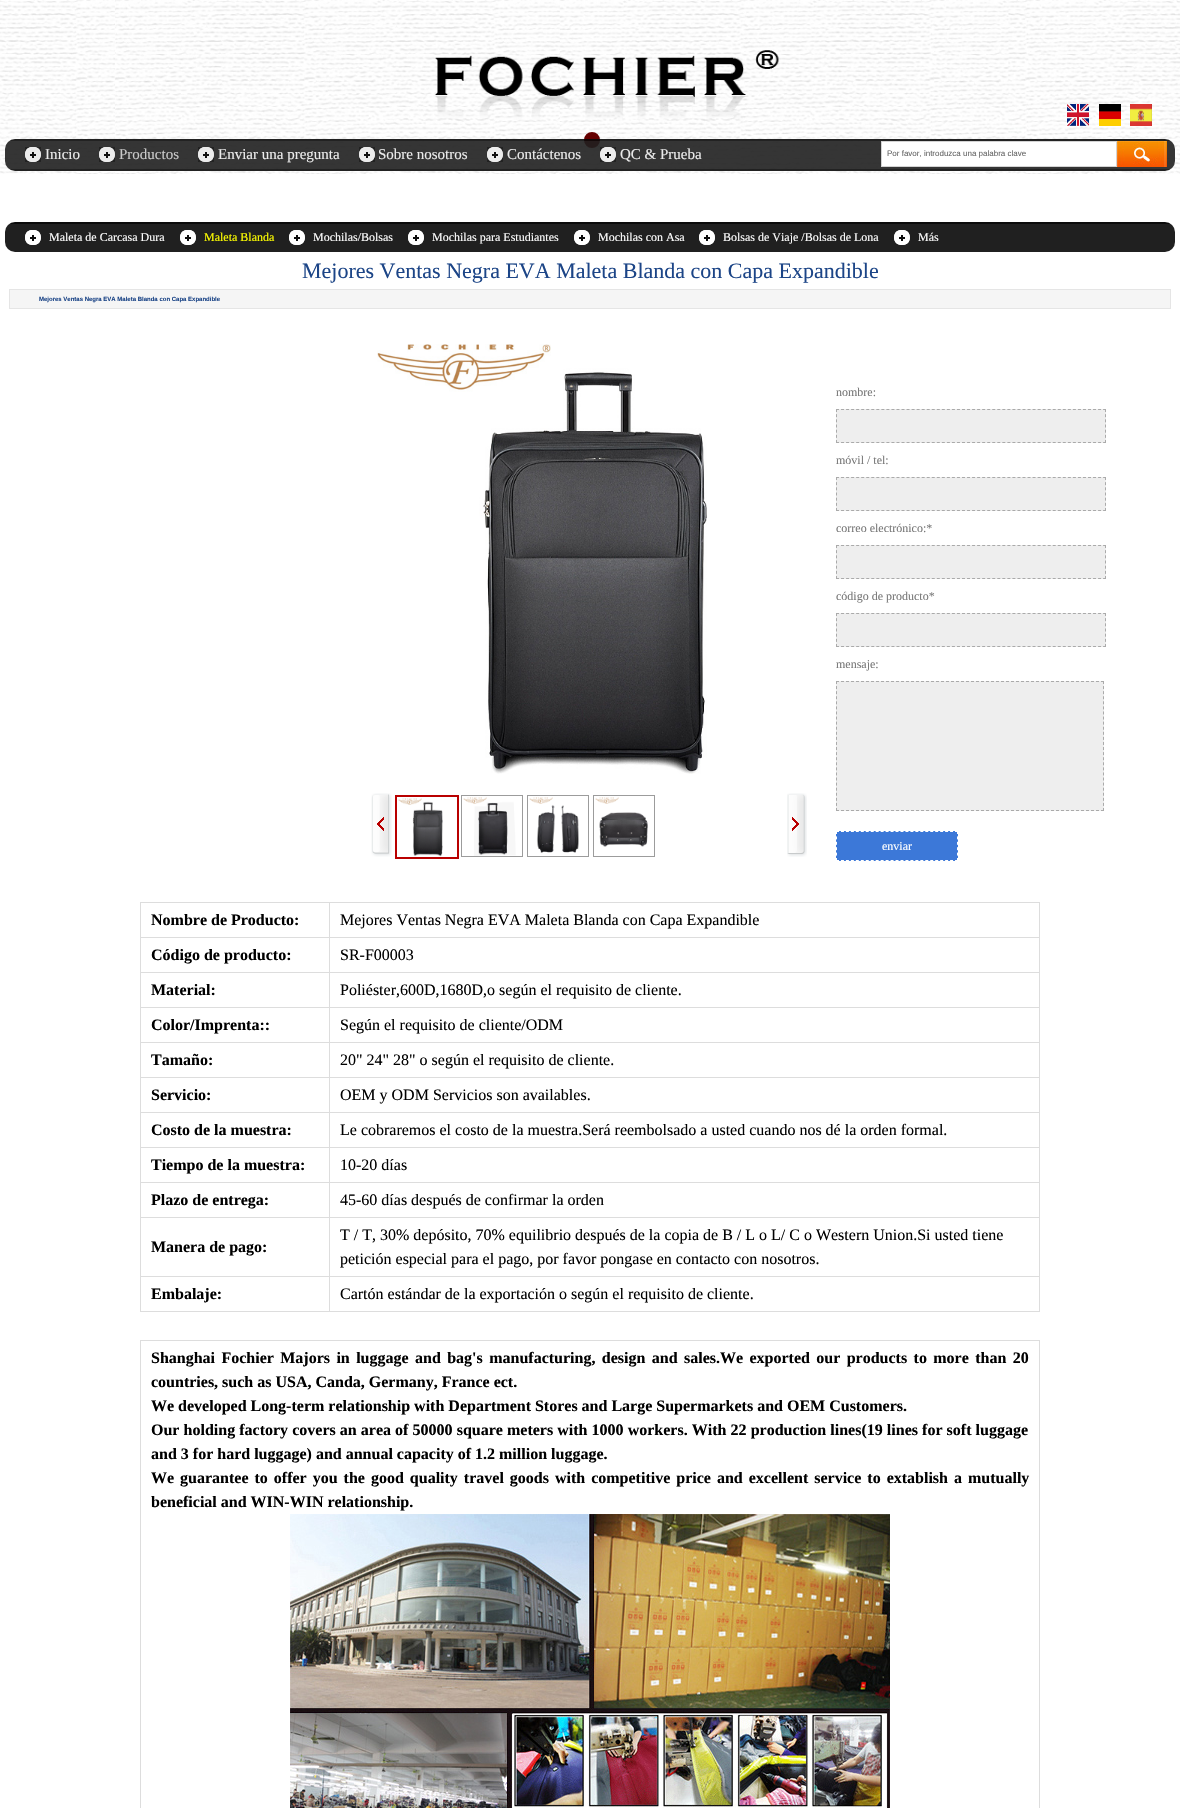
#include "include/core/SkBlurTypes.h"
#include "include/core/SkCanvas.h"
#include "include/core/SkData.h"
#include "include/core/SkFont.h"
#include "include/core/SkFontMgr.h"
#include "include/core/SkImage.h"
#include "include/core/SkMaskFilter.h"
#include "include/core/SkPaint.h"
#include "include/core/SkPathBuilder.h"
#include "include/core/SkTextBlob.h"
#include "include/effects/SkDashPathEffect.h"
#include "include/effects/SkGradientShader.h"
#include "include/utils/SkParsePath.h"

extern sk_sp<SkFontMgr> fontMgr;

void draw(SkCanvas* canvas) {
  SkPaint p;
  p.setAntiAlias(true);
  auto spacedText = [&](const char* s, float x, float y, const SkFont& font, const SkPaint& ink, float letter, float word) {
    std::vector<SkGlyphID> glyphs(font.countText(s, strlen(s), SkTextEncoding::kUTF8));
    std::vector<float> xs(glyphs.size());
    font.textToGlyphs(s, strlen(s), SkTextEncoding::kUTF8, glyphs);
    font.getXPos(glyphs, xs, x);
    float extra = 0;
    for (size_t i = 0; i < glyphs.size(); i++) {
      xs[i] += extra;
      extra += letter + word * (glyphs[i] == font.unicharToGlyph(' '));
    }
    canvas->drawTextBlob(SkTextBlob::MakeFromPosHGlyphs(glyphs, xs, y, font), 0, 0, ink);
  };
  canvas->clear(SK_ColorWHITE);
  canvas->drawImageRect(SkImages::DeferredFromEncodedData(SkData::MakeFromFileName("images/1.png")), SkRect::MakeLTRB(0, 0, 1180, 174), SkSamplingOptions());
  p.setColor(SkColorSetRGB(102, 0, 0));
  canvas->drawCircle(592, 140, 7, p);
  p.setStyle(SkPaint::kStroke_Style);
  p.setStrokeWidth(2);
  canvas->drawCircle(592, 140, 7, p);
  canvas->drawImageRect(SkImages::DeferredFromEncodedData(SkData::MakeFromFileName("images/2.png")), SkRect::MakeLTRB(1067, 104, 1089, 126), SkSamplingOptions());
  canvas->drawImageRect(SkImages::DeferredFromEncodedData(SkData::MakeFromFileName("images/3.png")), SkRect::MakeLTRB(1099, 104, 1121, 126), SkSamplingOptions());
  canvas->drawImageRect(SkImages::DeferredFromEncodedData(SkData::MakeFromFileName("images/4.png")), SkRect::MakeLTRB(1130, 104, 1152, 126), SkSamplingOptions());
  canvas->drawImageRect(SkImages::DeferredFromEncodedData(SkData::MakeFromFileName("images/5.png")), SkRect::MakeLTRB(5, 139, 1175, 171), SkSamplingOptions());
  canvas->drawImageRect(SkImages::DeferredFromEncodedData(SkData::MakeFromFileName("images/6.png")), SkRect::MakeLTRB(25, 147, 41, 162), SkSamplingOptions());
  canvas->drawImageRect(SkImages::DeferredFromEncodedData(SkData::MakeFromFileName("images/6.png")), SkRect::MakeLTRB(99, 147, 115, 162), SkSamplingOptions());
  canvas->drawImageRect(SkImages::DeferredFromEncodedData(SkData::MakeFromFileName("images/7.png")), SkRect::MakeLTRB(198, 147, 214, 162), SkSamplingOptions());
  canvas->drawImageRect(SkImages::DeferredFromEncodedData(SkData::MakeFromFileName("images/6.png")), SkRect::MakeLTRB(359, 147, 375, 162), SkSamplingOptions());
  canvas->drawImageRect(SkImages::DeferredFromEncodedData(SkData::MakeFromFileName("images/8.png")), SkRect::MakeLTRB(487, 147, 503, 162), SkSamplingOptions());
  canvas->drawImageRect(SkImages::DeferredFromEncodedData(SkData::MakeFromFileName("images/6.png")), SkRect::MakeLTRB(600, 147, 616, 162), SkSamplingOptions());
  p.setStyle(SkPaint::kFill_Style);
  p.setColor(SK_ColorWHITE);
  canvas->drawRect(SkRect::MakeLTRB(881.5f, 141.5f, 1116.5f, 166.5f), p);
  p.setStyle(SkPaint::kStroke_Style);
  p.setStrokeWidth(1);
  p.setColor(SkColorSetRGB(211, 211, 211));
  canvas->drawRect(SkRect::MakeLTRB(881.5f, 141.5f, 1116.5f, 166.5f), p);
  canvas->drawImageRect(SkImages::DeferredFromEncodedData(SkData::MakeFromFileName("images/9.png")), SkRect::MakeLTRB(1117, 141, 1167, 167), SkSamplingOptions());
  canvas->drawImageRect(SkImages::DeferredFromEncodedData(SkData::MakeFromFileName("images/10.png")), SkRect::MakeLTRB(5, 222, 1175, 252), SkSamplingOptions());
  canvas->drawImageRect(SkImages::DeferredFromEncodedData(SkData::MakeFromFileName("images/11.png")), SkRect::MakeLTRB(25, 230, 41, 245), SkSamplingOptions());
  canvas->drawImageRect(SkImages::DeferredFromEncodedData(SkData::MakeFromFileName("images/11.png")), SkRect::MakeLTRB(180, 230, 196, 245), SkSamplingOptions());
  canvas->drawImageRect(SkImages::DeferredFromEncodedData(SkData::MakeFromFileName("images/11.png")), SkRect::MakeLTRB(289, 230, 305, 245), SkSamplingOptions());
  canvas->drawImageRect(SkImages::DeferredFromEncodedData(SkData::MakeFromFileName("images/11.png")), SkRect::MakeLTRB(408, 230, 424, 245), SkSamplingOptions());
  canvas->drawImageRect(SkImages::DeferredFromEncodedData(SkData::MakeFromFileName("images/11.png")), SkRect::MakeLTRB(574, 230, 590, 245), SkSamplingOptions());
  canvas->drawImageRect(SkImages::DeferredFromEncodedData(SkData::MakeFromFileName("images/11.png")), SkRect::MakeLTRB(699, 230, 715, 245), SkSamplingOptions());
  canvas->drawImageRect(SkImages::DeferredFromEncodedData(SkData::MakeFromFileName("images/11.png")), SkRect::MakeLTRB(894, 230, 910, 245), SkSamplingOptions());
  p.setStyle(SkPaint::kFill_Style);
  p.setColor(SkColorSetRGB(245, 245, 245));
  canvas->drawRect(SkRect::MakeLTRB(9.5f, 289.5f, 1170.5f, 308.5f), p);
  p.setStyle(SkPaint::kStroke_Style);
  p.setColor(SkColorSetRGB(229, 229, 229));
  canvas->drawRect(SkRect::MakeLTRB(9.5f, 289.5f, 1170.5f, 308.5f), p);
  canvas->drawImageRect(SkImages::DeferredFromEncodedData(SkData::MakeFromFileName("images/12.png")), SkRect::MakeLTRB(377, 344, 707, 774), SkSamplingOptions());
  canvas->drawImageRect(SkImages::DeferredFromEncodedData(SkData::MakeFromFileName("images/13.png")), SkRect::MakeLTRB(371, 793, 392, 857), SkSamplingOptions());
  p.setStrokeWidth(2);
  p.setColor(SkColorSetRGB(185, 0, 0));
  canvas->drawRect(SkRect::MakeLTRB(396, 796, 458, 858), p);
  canvas->drawImageRect(SkImages::DeferredFromEncodedData(SkData::MakeFromFileName("images/14.png")), SkRect::MakeLTRB(398, 798, 443, 857), SkSamplingOptions());
  p.setStrokeWidth(1);
  p.setColor(SkColorSetRGB(156, 156, 156));
  canvas->drawRect(SkRect::MakeLTRB(461.5f, 795.5f, 522.5f, 856.5f), p);
  canvas->drawImageRect(SkImages::DeferredFromEncodedData(SkData::MakeFromFileName("images/15.png")), SkRect::MakeLTRB(463, 797, 516, 856), SkSamplingOptions());
  canvas->drawRect(SkRect::MakeLTRB(527.5f, 795.5f, 588.5f, 856.5f), p);
  canvas->drawImageRect(SkImages::DeferredFromEncodedData(SkData::MakeFromFileName("images/16.png")), SkRect::MakeLTRB(529, 797, 579, 853), SkSamplingOptions());
  canvas->drawRect(SkRect::MakeLTRB(593.5f, 795.5f, 654.5f, 856.5f), p);
  canvas->drawImageRect(SkImages::DeferredFromEncodedData(SkData::MakeFromFileName("images/17.png")), SkRect::MakeLTRB(595, 797, 648, 847), SkSamplingOptions());
  canvas->drawImageRect(SkImages::DeferredFromEncodedData(SkData::MakeFromFileName("images/18.png")), SkRect::MakeLTRB(787, 793, 807, 857), SkSamplingOptions());
  p.setStyle(SkPaint::kFill_Style);
  p.setColor(SkColorSetRGB(221, 221, 221));
  canvas->drawRect(SkRect::MakeLTRB(329, 902, 1040, 903), p);
  canvas->drawRect(SkRect::MakeLTRB(329, 937, 1040, 938), p);
  canvas->drawRect(SkRect::MakeLTRB(329, 972, 1040, 973), p);
  canvas->drawRect(SkRect::MakeLTRB(329, 1007, 1040, 1008), p);
  canvas->drawRect(SkRect::MakeLTRB(329, 1042, 1040, 1043), p);
  canvas->drawRect(SkRect::MakeLTRB(329, 1077, 1040, 1078), p);
  canvas->drawRect(SkRect::MakeLTRB(329, 1112, 1040, 1113), p);
  canvas->drawRect(SkRect::MakeLTRB(329, 1147, 1040, 1148), p);
  canvas->drawRect(SkRect::MakeLTRB(329, 1182, 1040, 1183), p);
  canvas->drawRect(SkRect::MakeLTRB(329, 1217, 1040, 1218), p);
  canvas->drawRect(SkRect::MakeLTRB(329, 1276, 1040, 1277), p);
  canvas->drawRect(SkRect::MakeLTRB(1039, 1276, 1040, 1312), p);
  canvas->drawRect(SkRect::MakeLTRB(329, 1311, 1040, 1312), p);
  canvas->drawRect(SkRect::MakeLTRB(329, 1276, 330, 1312), p);
  canvas->drawRect(SkRect::MakeLTRB(140, 1276, 330, 1277), p);
  canvas->drawRect(SkRect::MakeLTRB(329, 1217, 330, 1277), p);
  canvas->drawRect(SkRect::MakeLTRB(140, 1217, 330, 1218), p);
  canvas->drawRect(SkRect::MakeLTRB(329, 1182, 330, 1218), p);
  canvas->drawRect(SkRect::MakeLTRB(140, 1182, 330, 1183), p);
  canvas->drawRect(SkRect::MakeLTRB(329, 1147, 330, 1183), p);
  canvas->drawRect(SkRect::MakeLTRB(140, 1147, 330, 1148), p);
  canvas->drawRect(SkRect::MakeLTRB(329, 1112, 330, 1148), p);
  canvas->drawRect(SkRect::MakeLTRB(140, 1112, 330, 1113), p);
  canvas->drawRect(SkRect::MakeLTRB(329, 1077, 330, 1113), p);
  canvas->drawRect(SkRect::MakeLTRB(140, 1077, 330, 1078), p);
  canvas->drawRect(SkRect::MakeLTRB(329, 1042, 330, 1078), p);
  canvas->drawRect(SkRect::MakeLTRB(140, 1042, 330, 1043), p);
  canvas->drawRect(SkRect::MakeLTRB(329, 1007, 330, 1043), p);
  canvas->drawRect(SkRect::MakeLTRB(140, 1007, 330, 1008), p);
  canvas->drawRect(SkRect::MakeLTRB(329, 972, 330, 1008), p);
  canvas->drawRect(SkRect::MakeLTRB(140, 972, 330, 973), p);
  canvas->drawRect(SkRect::MakeLTRB(329, 937, 330, 973), p);
  canvas->drawRect(SkRect::MakeLTRB(140, 937, 330, 938), p);
  canvas->drawRect(SkRect::MakeLTRB(329, 902, 330, 938), p);
  canvas->drawRect(SkRect::MakeLTRB(140, 902, 330, 903), p);
  canvas->drawRect(SkRect::MakeLTRB(140, 1311, 330, 1312), p);
  canvas->drawRect(SkRect::MakeLTRB(140, 1276, 141, 1312), p);
  canvas->drawRect(SkRect::MakeLTRB(140, 1217, 141, 1277), p);
  canvas->drawRect(SkRect::MakeLTRB(140, 1182, 141, 1218), p);
  canvas->drawRect(SkRect::MakeLTRB(140, 1147, 141, 1183), p);
  canvas->drawRect(SkRect::MakeLTRB(140, 1112, 141, 1148), p);
  canvas->drawRect(SkRect::MakeLTRB(140, 1077, 141, 1113), p);
  canvas->drawRect(SkRect::MakeLTRB(140, 1042, 141, 1078), p);
  canvas->drawRect(SkRect::MakeLTRB(140, 1007, 141, 1043), p);
  canvas->drawRect(SkRect::MakeLTRB(140, 972, 141, 1008), p);
  canvas->drawRect(SkRect::MakeLTRB(140, 937, 141, 973), p);
  canvas->drawRect(SkRect::MakeLTRB(140, 902, 141, 938), p);
  canvas->drawRect(SkRect::MakeLTRB(1039, 1217, 1040, 1277), p);
  canvas->drawRect(SkRect::MakeLTRB(1039, 1182, 1040, 1218), p);
  canvas->drawRect(SkRect::MakeLTRB(1039, 1147, 1040, 1183), p);
  canvas->drawRect(SkRect::MakeLTRB(1039, 1112, 1040, 1148), p);
  canvas->drawRect(SkRect::MakeLTRB(1039, 1077, 1040, 1113), p);
  canvas->drawRect(SkRect::MakeLTRB(1039, 1042, 1040, 1078), p);
  canvas->drawRect(SkRect::MakeLTRB(1039, 1007, 1040, 1043), p);
  canvas->drawRect(SkRect::MakeLTRB(1039, 972, 1040, 1008), p);
  canvas->drawRect(SkRect::MakeLTRB(1039, 937, 1040, 973), p);
  canvas->drawRect(SkRect::MakeLTRB(1039, 902, 1040, 938), p);
  canvas->drawRect(SkRect::MakeLTRB(140, 1340, 1040, 1341), p);
  canvas->drawRect(SkRect::MakeLTRB(1039, 1340, 1040, 1808), p);
  canvas->drawRect(SkRect::MakeLTRB(140, 1340, 141, 1808), p);
  canvas->drawImageRect(SkImages::DeferredFromEncodedData(SkData::MakeFromFileName("images/19.png")), SkRect::MakeLTRB(290, 1514, 890, 1808), SkSamplingOptions());
  p.setColor(SkColorSetRGB(238, 238, 238));
  canvas->drawRect(SkRect::MakeLTRB(836, 409, 1106, 443), p);
  p.setStyle(SkPaint::kStroke_Style);
  p.setColor(SkColorSetRGB(170, 170, 170));
  p.setPathEffect(SkDashPathEffect::Make({{3, 2.04f}}, 0));
  canvas->drawPath(SkPathBuilder().moveTo(836, 409.5f).lineTo(1106, 409.5f).detach(), p);
  p.setPathEffect(nullptr);
  p.setPathEffect(SkDashPathEffect::Make({{3, 2.17f}}, 0));
  canvas->drawPath(SkPathBuilder().moveTo(1105.5f, 409).lineTo(1105.5f, 443).detach(), p);
  p.setPathEffect(nullptr);
  p.setPathEffect(SkDashPathEffect::Make({{3, 2.04f}}, 0));
  canvas->drawPath(SkPathBuilder().moveTo(836, 442.5f).lineTo(1106, 442.5f).detach(), p);
  p.setPathEffect(nullptr);
  p.setPathEffect(SkDashPathEffect::Make({{3, 2.17f}}, 0));
  canvas->drawPath(SkPathBuilder().moveTo(836.5f, 409).lineTo(836.5f, 443).detach(), p);
  p.setPathEffect(nullptr);
  p.setStyle(SkPaint::kFill_Style);
  p.setColor(SkColorSetRGB(238, 238, 238));
  canvas->drawRect(SkRect::MakeLTRB(836, 477, 1106, 511), p);
  p.setStyle(SkPaint::kStroke_Style);
  p.setColor(SkColorSetRGB(170, 170, 170));
  p.setPathEffect(SkDashPathEffect::Make({{3, 2.04f}}, 0));
  canvas->drawPath(SkPathBuilder().moveTo(836, 477.5f).lineTo(1106, 477.5f).detach(), p);
  p.setPathEffect(nullptr);
  p.setPathEffect(SkDashPathEffect::Make({{3, 2.17f}}, 0));
  canvas->drawPath(SkPathBuilder().moveTo(1105.5f, 477).lineTo(1105.5f, 511).detach(), p);
  p.setPathEffect(nullptr);
  p.setPathEffect(SkDashPathEffect::Make({{3, 2.04f}}, 0));
  canvas->drawPath(SkPathBuilder().moveTo(836, 510.5f).lineTo(1106, 510.5f).detach(), p);
  p.setPathEffect(nullptr);
  p.setPathEffect(SkDashPathEffect::Make({{3, 2.17f}}, 0));
  canvas->drawPath(SkPathBuilder().moveTo(836.5f, 477).lineTo(836.5f, 511).detach(), p);
  p.setPathEffect(nullptr);
  p.setStyle(SkPaint::kFill_Style);
  p.setColor(SkColorSetRGB(238, 238, 238));
  canvas->drawRect(SkRect::MakeLTRB(836, 545, 1106, 579), p);
  p.setStyle(SkPaint::kStroke_Style);
  p.setColor(SkColorSetRGB(170, 170, 170));
  p.setPathEffect(SkDashPathEffect::Make({{3, 2.04f}}, 0));
  canvas->drawPath(SkPathBuilder().moveTo(836, 545.5f).lineTo(1106, 545.5f).detach(), p);
  p.setPathEffect(nullptr);
  p.setPathEffect(SkDashPathEffect::Make({{3, 2.17f}}, 0));
  canvas->drawPath(SkPathBuilder().moveTo(1105.5f, 545).lineTo(1105.5f, 579).detach(), p);
  p.setPathEffect(nullptr);
  p.setPathEffect(SkDashPathEffect::Make({{3, 2.04f}}, 0));
  canvas->drawPath(SkPathBuilder().moveTo(836, 578.5f).lineTo(1106, 578.5f).detach(), p);
  p.setPathEffect(nullptr);
  p.setPathEffect(SkDashPathEffect::Make({{3, 2.17f}}, 0));
  canvas->drawPath(SkPathBuilder().moveTo(836.5f, 545).lineTo(836.5f, 579).detach(), p);
  p.setPathEffect(nullptr);
  p.setStyle(SkPaint::kFill_Style);
  p.setColor(SkColorSetRGB(238, 238, 238));
  canvas->drawRect(SkRect::MakeLTRB(836, 613, 1106, 647), p);
  p.setStyle(SkPaint::kStroke_Style);
  p.setColor(SkColorSetRGB(170, 170, 170));
  p.setPathEffect(SkDashPathEffect::Make({{3, 2.04f}}, 0));
  canvas->drawPath(SkPathBuilder().moveTo(836, 613.5f).lineTo(1106, 613.5f).detach(), p);
  p.setPathEffect(nullptr);
  p.setPathEffect(SkDashPathEffect::Make({{3, 2.17f}}, 0));
  canvas->drawPath(SkPathBuilder().moveTo(1105.5f, 613).lineTo(1105.5f, 647).detach(), p);
  p.setPathEffect(nullptr);
  p.setPathEffect(SkDashPathEffect::Make({{3, 2.04f}}, 0));
  canvas->drawPath(SkPathBuilder().moveTo(836, 646.5f).lineTo(1106, 646.5f).detach(), p);
  p.setPathEffect(nullptr);
  p.setPathEffect(SkDashPathEffect::Make({{3, 2.17f}}, 0));
  canvas->drawPath(SkPathBuilder().moveTo(836.5f, 613).lineTo(836.5f, 647).detach(), p);
  p.setPathEffect(nullptr);
  p.setStyle(SkPaint::kFill_Style);
  p.setColor(SkColorSetRGB(238, 238, 238));
  canvas->drawRect(SkRect::MakeLTRB(836, 681, 1104, 811), p);
  p.setStyle(SkPaint::kStroke_Style);
  p.setColor(SkColorSetRGB(170, 170, 170));
  p.setPathEffect(SkDashPathEffect::Make({{3, 2}}, 0));
  canvas->drawPath(SkPathBuilder().moveTo(836, 681.5f).lineTo(1104, 681.5f).detach(), p);
  p.setPathEffect(nullptr);
  p.setPathEffect(SkDashPathEffect::Make({{3, 2.08f}}, 0));
  canvas->drawPath(SkPathBuilder().moveTo(1103.5f, 681).lineTo(1103.5f, 811).detach(), p);
  p.setPathEffect(nullptr);
  p.setPathEffect(SkDashPathEffect::Make({{3, 2}}, 0));
  canvas->drawPath(SkPathBuilder().moveTo(836, 810.5f).lineTo(1104, 810.5f).detach(), p);
  p.setPathEffect(nullptr);
  p.setPathEffect(SkDashPathEffect::Make({{3, 2.08f}}, 0));
  canvas->drawPath(SkPathBuilder().moveTo(836.5f, 681).lineTo(836.5f, 811).detach(), p);
  p.setPathEffect(nullptr);
  p.setStyle(SkPaint::kFill_Style);
  p.setColor(SkColorSetRGB(60, 120, 216));
  canvas->drawRect(SkRect::MakeLTRB(836, 831, 958, 861), p);
  p.setStyle(SkPaint::kStroke_Style);
  p.setColor(SK_ColorWHITE);
  p.setPathEffect(SkDashPathEffect::Make({{3, 1.96f}}, 0));
  canvas->drawPath(SkPathBuilder().moveTo(836, 831.5f).lineTo(958, 831.5f).detach(), p);
  p.setPathEffect(nullptr);
  p.setPathEffect(SkDashPathEffect::Make({{3, 2.4f}}, 0));
  canvas->drawPath(SkPathBuilder().moveTo(957.5f, 831).lineTo(957.5f, 861).detach(), p);
  p.setPathEffect(nullptr);
  p.setPathEffect(SkDashPathEffect::Make({{3, 1.96f}}, 0));
  canvas->drawPath(SkPathBuilder().moveTo(836, 860.5f).lineTo(958, 860.5f).detach(), p);
  p.setPathEffect(nullptr);
  p.setPathEffect(SkDashPathEffect::Make({{3, 2.4f}}, 0));
  canvas->drawPath(SkPathBuilder().moveTo(836.5f, 831).lineTo(836.5f, 861).detach(), p);
  p.setPathEffect(nullptr);
  SkFont font1(fontMgr->matchFamilyStyle("Liberation Serif", SkFontStyle::Normal()), 15);
  font1.setSubpixel(true);
  p.setStyle(SkPaint::kFill_Style);
  p.setColor(SkColorSetRGB(235, 235, 235));
  canvas->drawString("Inicio", 45, 159, font1, p);
  p.setColor(SkColorSetRGB(201, 201, 201));
  canvas->drawString("Productos", 119, 159, font1, p);
  p.setColor(SkColorSetRGB(235, 235, 235));
  canvas->drawString("Enviar una pregunta", 218, 159, font1, p);
  canvas->drawString("Sobre nosotros", 378, 159, font1, p);
  canvas->drawString("Contáctenos", 507, 159, font1, p);
  canvas->drawString("QC & Prueba", 620, 159, font1, p);
  SkFont font2(fontMgr->matchFamilyStyle("Liberation Sans", SkFontStyle::Normal()), 8);
  font2.setSubpixel(true);
  p.setColor(SkColorSetRGB(102, 102, 102));
  canvas->drawString("Por favor, introduzca una palabra clave", 887, 156, font2, p);
  SkFont font3(fontMgr->matchFamilyStyle("Liberation Serif", SkFontStyle::Normal()), 12);
  font3.setSubpixel(true);
  p.setColor(SK_ColorWHITE);
  canvas->drawString("Maleta de Carcasa Dura", 49, 241, font3, p);
  p.setColor(SkColorSetRGB(255, 255, 0));
  canvas->drawString("Maleta Blanda", 204, 241, font3, p);
  p.setColor(SK_ColorWHITE);
  canvas->drawString("Mochilas/Bolsas", 313, 241, font3, p);
  canvas->drawString("Mochilas para Estudiantes", 432, 241, font3, p);
  canvas->drawString("Mochilas con Asa", 598, 241, font3, p);
  canvas->drawString("Bolsas de Viaje /Bolsas de Lona", 723, 241, font3, p);
  canvas->drawString("Más", 918, 241, font3, p);
  SkFont font4(fontMgr->matchFamilyStyle("Liberation Serif", SkFontStyle::Normal()), 22);
  font4.setSubpixel(true);
  p.setColor(SkColorSetRGB(28, 69, 135));
  canvas->drawString("Mejores Ventas Negra EVA Maleta Blanda con Capa Expandible", 302, 278, font4, p);
  SkFont font5(fontMgr->matchFamilyStyle("Liberation Sans", SkFontStyle::Bold()), 6);
  font5.setSubpixel(true);
  canvas->drawString("Mejores Ventas Negra EVA Maleta Blanda con Capa Expandible", 39, 301, font5, p);
  SkFont font6(fontMgr->matchFamilyStyle("Liberation Serif", SkFontStyle::Bold()), 16);
  font6.setSubpixel(true);
  p.setColor(SK_ColorBLACK);
  canvas->drawString("Nombre de Producto:", 151, 925, font6, p);
  SkFont font7(fontMgr->matchFamilyStyle("Liberation Serif", SkFontStyle::Normal()), 16);
  font7.setSubpixel(true);
  canvas->drawString("Mejores Ventas Negra EVA Maleta Blanda con Capa Expandible", 340, 925, font7, p);
  canvas->drawString("Código de producto:", 151, 960, font6, p);
  canvas->drawString("SR-F00003", 340, 960, font7, p);
  canvas->drawString("Material:", 151, 995, font6, p);
  canvas->drawString("Poliéster,600D,1680D,o según el requisito de cliente.", 340, 995, font7, p);
  canvas->drawString("Color/Imprenta::", 151, 1030, font6, p);
  canvas->drawString("Según el requisito de cliente/ODM", 340, 1030, font7, p);
  canvas->drawString("Tamaño:", 151, 1065, font6, p);
  canvas->drawString("20\" 24\" 28\" o según el requisito de cliente.", 340, 1065, font7, p);
  canvas->drawString("Servicio:", 151, 1100, font6, p);
  canvas->drawString("OEM y ODM Servicios son availables.", 340, 1100, font7, p);
  canvas->drawString("Costo de la muestra:", 151, 1135, font6, p);
  canvas->drawString("Le cobraremos el costo de la muestra.Será reembolsado a usted cuando nos dé la orden formal.", 340, 1135, font7, p);
  canvas->drawString("Tiempo de la muestra:", 151, 1170, font6, p);
  canvas->drawString("10-20 días", 340, 1170, font7, p);
  canvas->drawString("Plazo de entrega:", 151, 1205, font6, p);
  canvas->drawString("45-60 días después de confirmar la orden", 340, 1205, font7, p);
  canvas->drawString("Manera de pago:", 151, 1252, font6, p);
  canvas->drawString("T / T, 30% depósito, 70% equilibrio después de la copia de B / L o L/ C o Western Union.Si usted tiene", 340, 1240, font7, p);
  canvas->drawString("petición especial para el pago, por favor pongase en contacto con nosotros.", 340, 1264, font7, p);
  canvas->drawString("Embalaje:", 151, 1299, font6, p);
  canvas->drawString("Cartón estándar de la exportación o según el requisito de cliente.", 340, 1299, font7, p);
  spacedText("Shanghai Fochier Majors in luggage and bag's manufacturing, design and sales.We exported our products to more than 20", 151, 1363, font6, p, 0, 2.4f);
  canvas->drawString("countries, such as USA, Canda, Germany, France ect.", 151, 1387, font6, p);
  canvas->drawString("We developed Long-term relationship with Department Stores and Large Supermarkets and OEM Customers.", 151, 1411, font6, p);
  spacedText("Our holding factory covers an area of 50000 square meters with 1000 workers. With 22 production lines(19 lines for soft luggage", 151, 1435, font6, p, 0, 0.1f);
  canvas->drawString("and 3 for hard luggage) and annual capacity of 1.2 million luggage.", 151, 1459, font6, p);
  spacedText("We guarantee to offer you the good quality travel goods with competitive price and excellent service to extablish a mutually", 151, 1483, font6, p, 0, 2);
  canvas->drawString("beneficial and WIN-WIN relationship.", 151, 1507, font6, p);
  p.setColor(SkColorSetRGB(119, 119, 119));
  canvas->drawString("nombre:", 836, 396, font3, p);
  canvas->drawString("móvil / tel:", 836, 464, font3, p);
  canvas->drawString("correo electrónico:*", 836, 532, font3, p);
  canvas->drawString("código de producto*", 836, 600, font3, p);
  canvas->drawString("mensaje:", 836, 668, font3, p);
  p.setColor(SK_ColorWHITE);
  canvas->drawString("enviar", 882, 850, font3, p);
}
